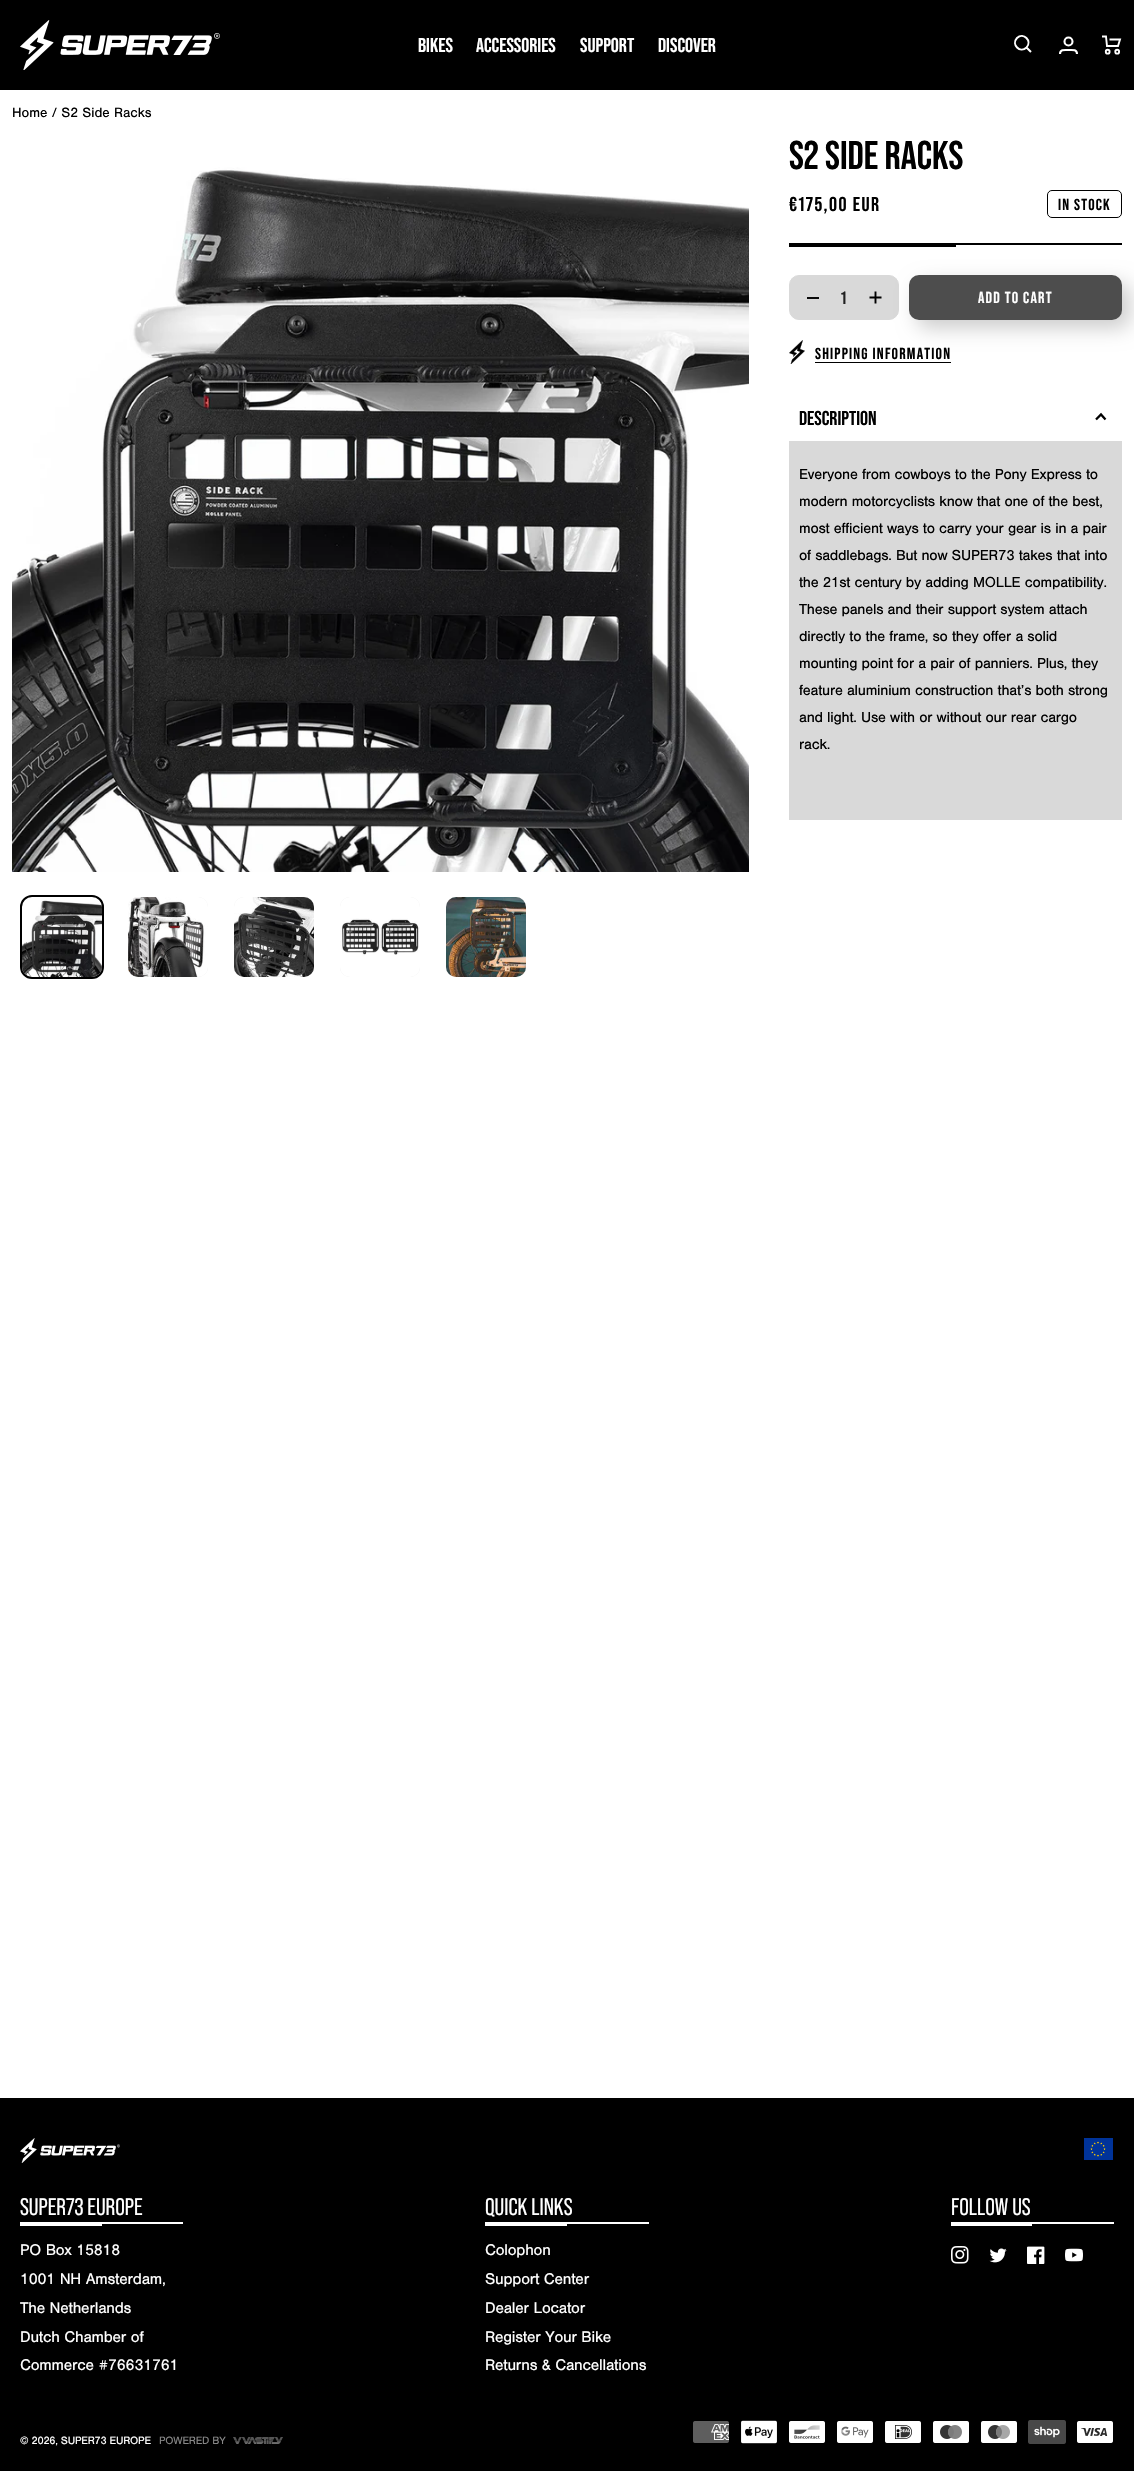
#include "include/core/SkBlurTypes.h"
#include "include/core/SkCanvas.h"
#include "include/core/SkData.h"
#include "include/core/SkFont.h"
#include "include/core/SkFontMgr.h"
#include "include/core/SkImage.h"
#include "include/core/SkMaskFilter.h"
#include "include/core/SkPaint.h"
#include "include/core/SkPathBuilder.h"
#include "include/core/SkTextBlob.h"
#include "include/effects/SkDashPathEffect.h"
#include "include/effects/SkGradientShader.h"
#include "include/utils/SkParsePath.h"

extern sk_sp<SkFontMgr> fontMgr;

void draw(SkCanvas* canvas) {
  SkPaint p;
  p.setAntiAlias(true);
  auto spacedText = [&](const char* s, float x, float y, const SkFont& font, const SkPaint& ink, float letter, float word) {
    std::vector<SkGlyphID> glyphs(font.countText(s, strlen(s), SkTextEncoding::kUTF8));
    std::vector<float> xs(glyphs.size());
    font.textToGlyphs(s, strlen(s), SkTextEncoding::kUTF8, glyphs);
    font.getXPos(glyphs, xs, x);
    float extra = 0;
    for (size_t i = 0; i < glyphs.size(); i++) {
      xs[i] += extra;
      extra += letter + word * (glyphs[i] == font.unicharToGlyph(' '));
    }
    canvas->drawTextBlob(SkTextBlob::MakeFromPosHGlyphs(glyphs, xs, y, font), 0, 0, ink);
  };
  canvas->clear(SK_ColorWHITE);
  p.setColor(SK_ColorBLACK);
  canvas->drawRect(SkRect::MakeLTRB(0, 0, 1134, 90), p);
  canvas->drawImageRect(SkImages::DeferredFromEncodedData(SkData::MakeFromFileName("images/1.png")), SkRect::MakeLTRB(20, 20, 220, 70), SkSamplingOptions());
  p.setStyle(SkPaint::kStroke_Style);
  p.setStrokeWidth(2);
  p.setColor(SK_ColorWHITE);
  canvas->drawPath(SkPathBuilder().moveTo(1026.5f, 47.5f).cubicTo(1032.5f, 41, 1023.5f, 32, 1017, 38).cubicTo(1011, 44.5f, 1020, 53.5f, 1026.5f, 47.5f).close().moveTo(1026.5f, 47.5f).lineTo(1031, 52).detach(), p);
  p.setStrokeWidth(2.1f);
  canvas->drawCircle(1068.5f, 41.5f, 4, p);
  canvas->drawPath(SkPathBuilder().moveTo(1060, 54).cubicTo(1060, 49, 1065, 50, 1068.5f, 50).cubicTo(1072, 50, 1077, 49, 1077, 54).detach(), p);
  p.setStrokeWidth(1.9f);
  canvas->drawPath(SkPathBuilder().moveTo(1102, 36.5f).lineTo(1106, 36.5f).lineTo(1107, 46).lineTo(1118, 46).lineTo(1120, 39.5f).lineTo(1109.5f, 39.5f).detach(), p);
  canvas->drawCircle(1107.7f, 51.7f, 1.9f, p);
  canvas->drawCircle(1117.2f, 51.7f, 1.9f, p);
  canvas->drawImageRect(SkImages::DeferredFromEncodedData(SkData::MakeFromFileName("images/2.png")), SkRect::MakeLTRB(12, 135, 749, 872), SkSamplingOptions());
  canvas->drawImageRect(SkImages::DeferredFromEncodedData(SkData::MakeFromFileName("images/3.png")), SkRect::MakeLTRB(22, 897, 102, 977), SkSamplingOptions());
  p.setStrokeWidth(2);
  p.setColor(SK_ColorBLACK);
  canvas->drawRoundRect(SkRect::MakeLTRB(21, 896, 103, 978), 11, 11, p);
  p.setStyle(SkPaint::kFill_Style);
  p.setColor(SkColorSetRGB(237, 237, 237));
  canvas->drawRoundRect(SkRect::MakeLTRB(128, 897, 208, 977), 10, 10, p);
  canvas->drawImageRect(SkImages::DeferredFromEncodedData(SkData::MakeFromFileName("images/4.png")), SkRect::MakeLTRB(128, 897, 208, 977), SkSamplingOptions());
  canvas->drawRoundRect(SkRect::MakeLTRB(234, 897, 314, 977), 10, 10, p);
  canvas->drawImageRect(SkImages::DeferredFromEncodedData(SkData::MakeFromFileName("images/5.png")), SkRect::MakeLTRB(234, 897, 314, 977), SkSamplingOptions());
  canvas->drawRoundRect(SkRect::MakeLTRB(340, 897, 420, 977), 10, 10, p);
  canvas->drawImageRect(SkImages::DeferredFromEncodedData(SkData::MakeFromFileName("images/6.png")), SkRect::MakeLTRB(340, 897, 420, 977), SkSamplingOptions());
  canvas->drawRoundRect(SkRect::MakeLTRB(446, 897, 526, 977), 10, 10, p);
  canvas->drawImageRect(SkImages::DeferredFromEncodedData(SkData::MakeFromFileName("images/7.png")), SkRect::MakeLTRB(446, 897, 526, 977), SkSamplingOptions());
  p.setColor(SK_ColorBLACK);
  canvas->drawRect(SkRect::MakeLTRB(789, 243, 1122, 245), p);
  p.setStyle(SkPaint::kStroke_Style);
  p.setStrokeWidth(1);
  canvas->drawRoundRect(SkRect::MakeLTRB(1047.5f, 190.5f, 1121.5f, 217.5f), 4.5f, 4.5f, p);
  p.setStyle(SkPaint::kFill_Style);
  canvas->drawRect(SkRect::MakeLTRB(789, 245, 956, 247), p);
  p.setColor(SkColorSetRGB(217, 217, 217));
  canvas->drawRoundRect(SkRect::MakeLTRB(789.5f, 275.5f, 898.5f, 319.5f), 9.5f, 9.5f, p);
  p.setStyle(SkPaint::kStroke_Style);
  canvas->drawRoundRect(SkRect::MakeLTRB(789.5f, 275.5f, 898.5f, 319.5f), 9.5f, 9.5f, p);
  p.setStyle(SkPaint::kFill_Style);
  p.setColor(SkColorSetRGB(11, 11, 11));
  canvas->drawRect(SkRect::MakeLTRB(807, 297, 819, 299), p);
  p.setStyle(SkPaint::kStroke_Style);
  p.setStrokeWidth(1.9f);
  p.setColor(SK_ColorBLACK);
  canvas->drawPath(SkPathBuilder().moveTo(869.5f, 297.5f).lineTo(881.5f, 297.5f).moveTo(875.5f, 291.5f).lineTo(875.5f, 303.5f).detach(), p);
  p.setStyle(SkPaint::kFill_Style);
  p.setColor(SkColorSetARGB(51, 0, 0, 0));
  p.setMaskFilter(SkMaskFilter::MakeBlur(kNormal_SkBlurStyle, 10));
  canvas->drawRoundRect(SkRect::MakeLTRB(917, 283, 1130, 328), 10, 10, p);
  p.setMaskFilter(nullptr);
  p.setColor(SkColorSetRGB(77, 77, 77));
  canvas->drawRoundRect(SkRect::MakeLTRB(909, 275, 1122, 320), 10, 10, p);
  canvas->drawImageRect(SkImages::DeferredFromEncodedData(SkData::MakeFromFileName("images/8.png")), SkRect::MakeLTRB(789, 340, 805, 364), SkSamplingOptions());
  p.setColor(SK_ColorBLACK);
  canvas->drawRect(SkRect::MakeLTRB(815, 362, 951, 363), p);
  p.setStyle(SkPaint::kStroke_Style);
  p.setStrokeWidth(2.3f);
  canvas->drawPath(SkPathBuilder().moveTo(1105.5f, 419.5f).lineTo(1101, 414.5f).lineTo(1096, 419.5f).detach(), p);
  p.setStyle(SkPaint::kFill_Style);
  p.setColor(SkColorSetRGB(217, 217, 217));
  canvas->drawRect(SkRect::MakeLTRB(789, 441, 1122, 820), p);
  p.setColor(SK_ColorBLACK);
  canvas->drawRect(SkRect::MakeLTRB(0, 2098, 1134, 2471), p);
  canvas->drawImageRect(SkImages::DeferredFromEncodedData(SkData::MakeFromFileName("images/9.png")), SkRect::MakeLTRB(20, 2138, 120, 2163), SkSamplingOptions());
  canvas->drawImageRect(SkImages::DeferredFromEncodedData(SkData::MakeFromFileName("images/10.png")), SkRect::MakeLTRB(1084, 2138, 1113, 2160), SkSamplingOptions());
  p.setColor(SK_ColorWHITE);
  canvas->drawRect(SkRect::MakeLTRB(20, 2222, 183, 2224), p);
  canvas->drawRect(SkRect::MakeLTRB(20, 2224, 102, 2226), p);
  canvas->drawRect(SkRect::MakeLTRB(485, 2222, 649, 2224), p);
  canvas->drawRect(SkRect::MakeLTRB(485, 2224, 567, 2226), p);
  canvas->drawRect(SkRect::MakeLTRB(951, 2222, 1114, 2224), p);
  canvas->drawRect(SkRect::MakeLTRB(951, 2224, 1032, 2226), p);
  canvas->drawImageRect(SkImages::DeferredFromEncodedData(SkData::MakeFromFileName("images/11.png")), SkRect::MakeLTRB(951, 2246, 969, 2264), SkSamplingOptions());
  canvas->drawImageRect(SkImages::DeferredFromEncodedData(SkData::MakeFromFileName("images/12.png")), SkRect::MakeLTRB(989, 2248, 1007, 2263), SkSamplingOptions());
  canvas->drawImageRect(SkImages::DeferredFromEncodedData(SkData::MakeFromFileName("images/13.png")), SkRect::MakeLTRB(1027, 2246, 1045, 2264), SkSamplingOptions());
  canvas->drawImageRect(SkImages::DeferredFromEncodedData(SkData::MakeFromFileName("images/14.png")), SkRect::MakeLTRB(1065, 2248, 1083, 2262), SkSamplingOptions());
  canvas->drawImageRect(SkImages::DeferredFromEncodedData(SkData::MakeFromFileName("images/15.png")), SkRect::MakeLTRB(233, 2437, 283, 2444), SkSamplingOptions());
  canvas->drawImageRect(SkImages::DeferredFromEncodedData(SkData::MakeFromFileName("images/16.png")), SkRect::MakeLTRB(693, 2421, 729, 2443), SkSamplingOptions());
  canvas->drawImageRect(SkImages::DeferredFromEncodedData(SkData::MakeFromFileName("images/17.png")), SkRect::MakeLTRB(741, 2420, 777, 2444), SkSamplingOptions());
  canvas->drawImageRect(SkImages::DeferredFromEncodedData(SkData::MakeFromFileName("images/18.png")), SkRect::MakeLTRB(789, 2421, 825, 2443), SkSamplingOptions());
  canvas->drawImageRect(SkImages::DeferredFromEncodedData(SkData::MakeFromFileName("images/19.png")), SkRect::MakeLTRB(837, 2421, 873, 2443), SkSamplingOptions());
  canvas->drawImageRect(SkImages::DeferredFromEncodedData(SkData::MakeFromFileName("images/20.png")), SkRect::MakeLTRB(885, 2421, 921, 2443), SkSamplingOptions());
  canvas->drawImageRect(SkImages::DeferredFromEncodedData(SkData::MakeFromFileName("images/21.png")), SkRect::MakeLTRB(933, 2421, 969, 2443), SkSamplingOptions());
  canvas->drawImageRect(SkImages::DeferredFromEncodedData(SkData::MakeFromFileName("images/22.png")), SkRect::MakeLTRB(981, 2421, 1017, 2443), SkSamplingOptions());
  canvas->drawImageRect(SkImages::DeferredFromEncodedData(SkData::MakeFromFileName("images/23.png")), SkRect::MakeLTRB(1028, 2420, 1066, 2444), SkSamplingOptions());
  canvas->drawImageRect(SkImages::DeferredFromEncodedData(SkData::MakeFromFileName("images/24.png")), SkRect::MakeLTRB(1077, 2421, 1113, 2443), SkSamplingOptions());
  SkFont font1(fontMgr->matchFamilyStyle("Bebas Neue", SkFontStyle::Bold()), 20);
  font1.setSubpixel(true);
  canvas->drawString("BIKES", 418, 52, font1, p);
  canvas->drawString("ACCESSORIES", 476, 52, font1, p);
  canvas->drawString("SUPPORT", 580, 52, font1, p);
  canvas->drawString("DISCOVER", 658, 52, font1, p);
  SkFont font2(fontMgr->matchFamilyStyle("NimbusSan", SkFontStyle::Normal()), 14);
  font2.setSubpixel(true);
  p.setColor(SK_ColorBLACK);
  canvas->drawString("Home / S2 Side Racks", 12, 117, font2, p);
  SkFont font3(fontMgr->matchFamilyStyle("Bebas Neue", SkFontStyle::Bold()), 40);
  font3.setSubpixel(true);
  canvas->drawString("S2 SIDE RACKS", 789, 169, font3, p);
  spacedText("€175,00 EUR", 789, 211, font1, p, 1.5f, 0);
  SkFont font4(fontMgr->matchFamilyStyle("Bebas Neue", SkFontStyle::Bold()), 16);
  font4.setSubpixel(true);
  spacedText("IN STOCK", 1058, 210, font4, p, 1.2f, 0);
  SkFont font5(fontMgr->matchFamilyStyle("Bebas Neue", SkFontStyle::Bold()), 18);
  font5.setSubpixel(true);
  p.setColor(SkColorSetRGB(33, 33, 33));
  canvas->drawString("1", 841, 304, font5, p);
  p.setColor(SK_ColorWHITE);
  spacedText("ADD TO CART", 978, 303, font4, p, 1.2f, 0);
  p.setColor(SK_ColorBLACK);
  spacedText("SHIPPING INFORMATION", 815, 359, font4, p, 1.2f, 0);
  canvas->drawString("DESCRIPTION", 799, 425, font1, p);
  SkFont font6(fontMgr->matchFamilyStyle("NimbusSan", SkFontStyle::Normal()), 15);
  font6.setSubpixel(true);
  spacedText("Everyone from cowboys to the Pony Express to", 799, 479, font6, p, -0.2f, 0);
  spacedText("modern motorcyclists know that one of the best,", 799, 506, font6, p, -0.2f, 0);
  spacedText("most efficient ways to carry your gear is in a pair", 799, 533, font6, p, -0.2f, 0);
  spacedText("of saddlebags. But now SUPER73 takes that into", 799, 560, font6, p, -0.2f, 0);
  spacedText("the 21st century by adding MOLLE compatibility.", 799, 587, font6, p, -0.2f, 0);
  spacedText("These panels and their support system attach", 799, 614, font6, p, -0.2f, 0);
  spacedText("directly to the frame, so they offer a solid", 799, 641, font6, p, -0.2f, 0);
  spacedText("mounting point for a pair of panniers. Plus, they", 799, 668, font6, p, -0.2f, 0);
  spacedText("feature aluminium construction that’s both strong", 799, 695, font6, p, -0.2f, 0);
  spacedText("and light. Use with or without our rear cargo", 799, 722, font6, p, -0.2f, 0);
  spacedText("rack.", 799, 749, font6, p, -0.2f, 0);
  SkFont font7(fontMgr->matchFamilyStyle("Bebas Neue", SkFontStyle::Normal()), 24);
  font7.setSubpixel(true);
  p.setColor(SK_ColorWHITE);
  canvas->drawString("SUPER73 EUROPE", 20, 2215, font7, p);
  SkFont font8(fontMgr->matchFamilyStyle("NimbusSan", SkFontStyle::Normal()), 16);
  font8.setSubpixel(true);
  spacedText("PO Box 15818", 20, 2255, font8, p, -0.2f, 0);
  spacedText("1001 NH Amsterdam,", 20, 2284, font8, p, -0.2f, 0);
  spacedText("The Netherlands", 20, 2313, font8, p, -0.2f, 0);
  spacedText("Dutch Chamber of", 20, 2342, font8, p, -0.2f, 0);
  spacedText("Commerce #76631761", 20, 2370, font8, p, -0.2f, 0);
  canvas->drawString("QUICK LINKS", 485, 2215, font7, p);
  spacedText("Colophon", 485, 2255, font8, p, -0.2f, 0);
  spacedText("Support Center", 485, 2284, font8, p, -0.2f, 0);
  spacedText("Dealer Locator", 485, 2313, font8, p, -0.2f, 0);
  spacedText("Register Your Bike", 485, 2342, font8, p, -0.2f, 0);
  spacedText("Returns & Cancellations", 485, 2370, font8, p, -0.2f, 0);
  canvas->drawString("FOLLOW US", 951, 2215, font7, p);
  SkFont font9(fontMgr->matchFamilyStyle("NimbusSan", SkFontStyle::Normal()), 11);
  font9.setSubpixel(true);
  spacedText("© 2026, SUPER73 EUROPE", 20, 2444, font9, p, -0.2f, 0);
  p.setColor(SkColorSetRGB(135, 135, 135));
  spacedText("POWERED BY", 159, 2444, font9, p, -0.2f, 0);
}
